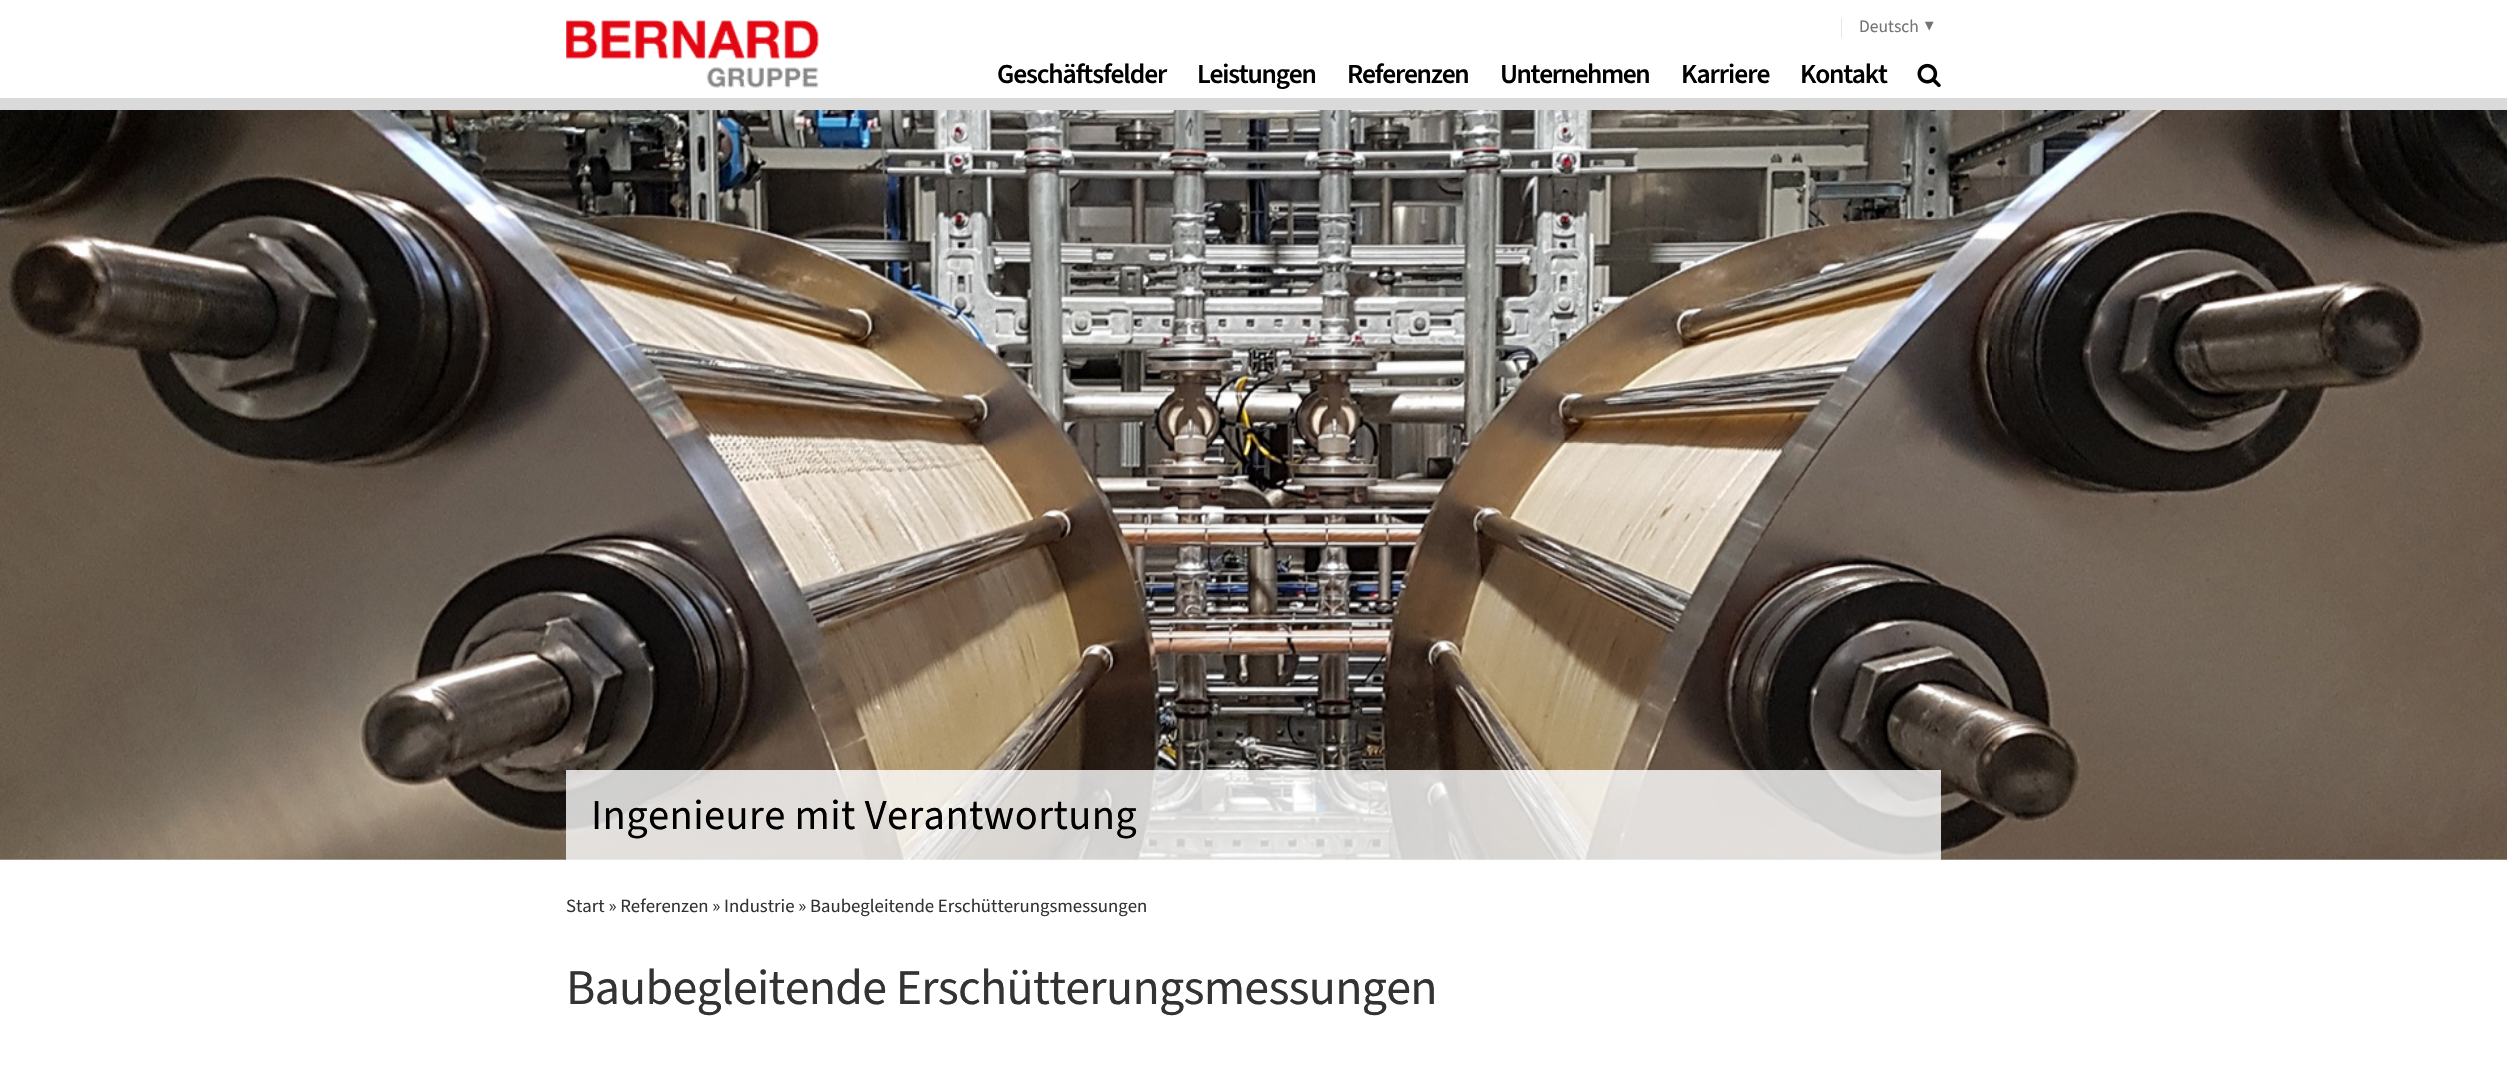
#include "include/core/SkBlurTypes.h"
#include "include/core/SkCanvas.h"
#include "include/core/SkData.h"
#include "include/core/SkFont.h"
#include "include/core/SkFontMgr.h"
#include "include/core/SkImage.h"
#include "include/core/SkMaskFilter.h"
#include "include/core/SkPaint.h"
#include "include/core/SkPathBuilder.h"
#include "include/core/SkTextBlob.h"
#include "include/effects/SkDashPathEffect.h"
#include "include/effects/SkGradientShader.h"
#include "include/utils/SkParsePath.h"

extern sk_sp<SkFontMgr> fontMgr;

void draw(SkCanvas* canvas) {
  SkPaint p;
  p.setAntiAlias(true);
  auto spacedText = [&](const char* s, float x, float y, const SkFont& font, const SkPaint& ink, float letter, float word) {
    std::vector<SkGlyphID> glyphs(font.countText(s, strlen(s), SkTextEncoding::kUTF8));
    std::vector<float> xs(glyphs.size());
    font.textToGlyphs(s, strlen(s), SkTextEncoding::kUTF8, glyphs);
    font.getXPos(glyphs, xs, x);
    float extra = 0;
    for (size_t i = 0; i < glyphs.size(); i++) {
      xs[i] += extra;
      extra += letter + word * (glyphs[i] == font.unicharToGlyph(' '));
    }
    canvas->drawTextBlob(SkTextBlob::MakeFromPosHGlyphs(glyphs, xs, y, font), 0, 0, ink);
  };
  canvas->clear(SK_ColorWHITE);
  p.setColor(SkColorSetRGB(229, 229, 229));
  canvas->drawRect(SkRect::MakeLTRB(1841, 18, 1842, 38), p);
  p.setColor(SkColorSetRGB(218, 218, 218));
  canvas->drawRect(SkRect::MakeLTRB(0, 98, 2507, 110), p);
  canvas->drawImageRect(SkImages::DeferredFromEncodedData(SkData::MakeFromFileName("images/1.png")), SkRect::MakeLTRB(566, 20, 819, 88), SkSamplingOptions());
  canvas->drawImageRect(SkImages::DeferredFromEncodedData(SkData::MakeFromFileName("images/2.png")), SkRect::MakeLTRB(1917, 63, 1941, 88), SkSamplingOptions());
  canvas->drawImageRect(SkImages::DeferredFromEncodedData(SkData::MakeFromFileName("images/3.png")), SkRect::MakeLTRB(0, 110, 2507, 860), SkSamplingOptions());
  p.setColor(SkColorSetARGB(204, 255, 255, 255));
  canvas->drawRect(SkRect::MakeLTRB(566, 770, 1941, 860), p);
  SkFont font1(fontMgr->matchFamilyStyle("Source Sans 3", SkFontStyle::Normal()), 17.5f);
  font1.setSubpixel(true);
  p.setColor(SkColorSetRGB(116, 116, 116));
  canvas->drawString("Deutsch", 1859, 32, font1, p);
  canvas->drawString("▼", 1924, 32, font1, p);
  SkFont font2(fontMgr->matchFamilyStyle("Source Sans 3", SkFontStyle(600, SkFontStyle::kNormal_Width, SkFontStyle::kUpright_Slant)), 27.5f);
  font2.setSubpixel(true);
  p.setColor(SK_ColorBLACK);
  spacedText("Geschäftsfelder", 997, 83, font2, p, -1.1f, 0);
  spacedText("Leistungen", 1197, 83, font2, p, -1.25f, 0);
  spacedText("Referenzen", 1347, 83, font2, p, -1.25f, 0);
  spacedText("Unternehmen", 1500, 83, font2, p, -1.4f, 0);
  spacedText("Karriere", 1681, 83, font2, p, -1, 0);
  spacedText("Kontakt", 1800, 83, font2, p, -1.25f, 0);
  SkFont font3(fontMgr->matchFamilyStyle("Source Sans 3", SkFontStyle::Normal()), 42.5f);
  font3.setSubpixel(true);
  spacedText("Ingenieure mit Verantwortung", 591, 829, font3, p, 0.4f, 0);
  SkFont font4(fontMgr->matchFamilyStyle("Source Sans 3", SkFontStyle::Normal()), 18.75f);
  font4.setSubpixel(true);
  p.setColor(SkColorSetRGB(51, 51, 51));
  canvas->drawString("Start » Referenzen » Industrie » Baubegleitende Erschütterungsmessungen", 566, 912, font4, p);
  SkFont font5(fontMgr->matchFamilyStyle("Source Sans 3", SkFontStyle::Normal()), 50);
  font5.setSubpixel(true);
  spacedText("Baubegleitende Erschütterungsmessungen", 566, 1004, font5, p, -0.75f, 0);
}
